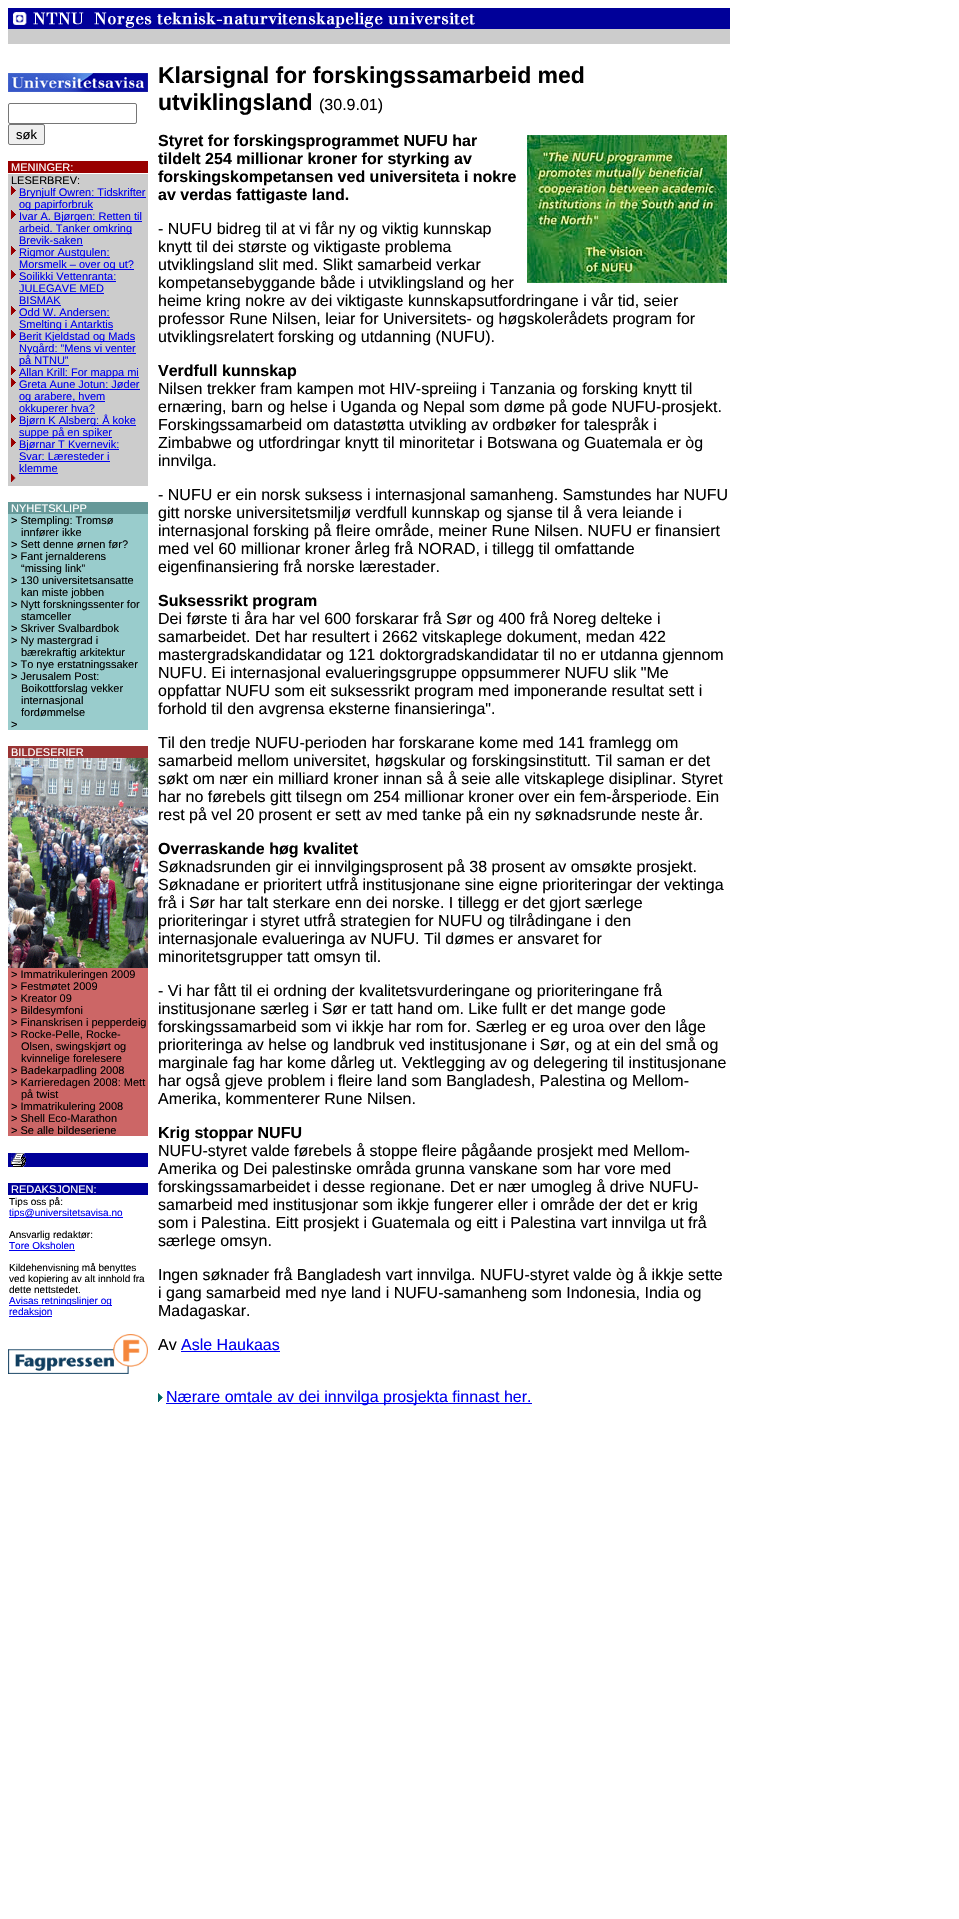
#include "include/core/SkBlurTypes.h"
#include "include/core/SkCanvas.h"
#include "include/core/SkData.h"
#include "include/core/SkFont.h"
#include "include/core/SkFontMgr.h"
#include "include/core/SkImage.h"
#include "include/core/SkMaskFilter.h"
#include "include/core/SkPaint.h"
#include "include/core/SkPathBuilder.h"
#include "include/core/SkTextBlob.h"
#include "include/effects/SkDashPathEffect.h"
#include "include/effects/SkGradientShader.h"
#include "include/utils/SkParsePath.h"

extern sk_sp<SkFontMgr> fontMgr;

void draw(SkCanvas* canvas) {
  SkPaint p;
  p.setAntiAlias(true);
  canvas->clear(SK_ColorWHITE);
  canvas->drawImageRect(SkImages::DeferredFromEncodedData(SkData::MakeFromFileName("images/1.png")), SkRect::MakeLTRB(8, 8, 730, 44), SkSamplingOptions());
  canvas->drawImageRect(SkImages::DeferredFromEncodedData(SkData::MakeFromFileName("images/2.png")), SkRect::MakeLTRB(8, 73, 148, 92), SkSamplingOptions());
  p.setStyle(SkPaint::kStroke_Style);
  p.setStrokeWidth(1);
  p.setColor(SkColorSetRGB(118, 118, 118));
  canvas->drawRoundRect(SkRect::MakeLTRB(8.5f, 103.5f, 136.5f, 123.5f), 1.5f, 1.5f, p);
  p.setStyle(SkPaint::kFill_Style);
  p.setColor(SkColorSetRGB(239, 239, 239));
  canvas->drawRoundRect(SkRect::MakeLTRB(8.5f, 124.5f, 44.5f, 144.5f), 1.5f, 1.5f, p);
  p.setStyle(SkPaint::kStroke_Style);
  p.setColor(SkColorSetRGB(118, 118, 118));
  canvas->drawRoundRect(SkRect::MakeLTRB(8.5f, 124.5f, 44.5f, 144.5f), 1.5f, 1.5f, p);
  p.setStyle(SkPaint::kFill_Style);
  p.setColor(SkColorSetRGB(153, 0, 0));
  canvas->drawRect(SkRect::MakeLTRB(8, 161, 148, 173), p);
  p.setColor(SkColorSetRGB(204, 204, 204));
  canvas->drawRect(SkRect::MakeLTRB(8, 174, 148, 486), p);
  canvas->drawImageRect(SkImages::DeferredFromEncodedData(SkData::MakeFromFileName("images/3.png")), SkRect::MakeLTRB(11, 186, 16, 195), SkSamplingOptions());
  p.setColor(SkColorSetRGB(0, 0, 238));
  canvas->drawRect(SkRect::MakeLTRB(19, 197, 146, 198), p);
  canvas->drawRect(SkRect::MakeLTRB(19, 209, 93, 210), p);
  canvas->drawImageRect(SkImages::DeferredFromEncodedData(SkData::MakeFromFileName("images/3.png")), SkRect::MakeLTRB(11, 210, 16, 219), SkSamplingOptions());
  canvas->drawRect(SkRect::MakeLTRB(19, 221, 142, 222), p);
  canvas->drawRect(SkRect::MakeLTRB(19, 233, 132, 234), p);
  canvas->drawRect(SkRect::MakeLTRB(19, 245, 83, 246), p);
  canvas->drawImageRect(SkImages::DeferredFromEncodedData(SkData::MakeFromFileName("images/3.png")), SkRect::MakeLTRB(11, 246, 16, 255), SkSamplingOptions());
  canvas->drawRect(SkRect::MakeLTRB(19, 257, 110, 258), p);
  canvas->drawRect(SkRect::MakeLTRB(19, 269, 134, 270), p);
  canvas->drawImageRect(SkImages::DeferredFromEncodedData(SkData::MakeFromFileName("images/3.png")), SkRect::MakeLTRB(11, 270, 16, 279), SkSamplingOptions());
  canvas->drawRect(SkRect::MakeLTRB(19, 281, 116, 282), p);
  canvas->drawRect(SkRect::MakeLTRB(19, 293, 104, 294), p);
  canvas->drawRect(SkRect::MakeLTRB(19, 305, 61, 306), p);
  canvas->drawImageRect(SkImages::DeferredFromEncodedData(SkData::MakeFromFileName("images/3.png")), SkRect::MakeLTRB(11, 306, 16, 315), SkSamplingOptions());
  canvas->drawRect(SkRect::MakeLTRB(19, 317, 110, 318), p);
  canvas->drawRect(SkRect::MakeLTRB(19, 329, 113, 330), p);
  canvas->drawImageRect(SkImages::DeferredFromEncodedData(SkData::MakeFromFileName("images/3.png")), SkRect::MakeLTRB(11, 330, 16, 339), SkSamplingOptions());
  canvas->drawRect(SkRect::MakeLTRB(19, 341, 135, 342), p);
  canvas->drawRect(SkRect::MakeLTRB(19, 353, 136, 354), p);
  canvas->drawRect(SkRect::MakeLTRB(19, 365, 69, 366), p);
  canvas->drawImageRect(SkImages::DeferredFromEncodedData(SkData::MakeFromFileName("images/3.png")), SkRect::MakeLTRB(11, 366, 16, 375), SkSamplingOptions());
  canvas->drawRect(SkRect::MakeLTRB(19, 377, 139, 378), p);
  canvas->drawImageRect(SkImages::DeferredFromEncodedData(SkData::MakeFromFileName("images/3.png")), SkRect::MakeLTRB(11, 378, 16, 387), SkSamplingOptions());
  canvas->drawRect(SkRect::MakeLTRB(19, 389, 140, 390), p);
  canvas->drawRect(SkRect::MakeLTRB(19, 401, 105, 402), p);
  canvas->drawRect(SkRect::MakeLTRB(19, 413, 95, 414), p);
  canvas->drawImageRect(SkImages::DeferredFromEncodedData(SkData::MakeFromFileName("images/3.png")), SkRect::MakeLTRB(11, 414, 16, 423), SkSamplingOptions());
  canvas->drawRect(SkRect::MakeLTRB(19, 425, 136, 426), p);
  canvas->drawRect(SkRect::MakeLTRB(19, 437, 112, 438), p);
  canvas->drawImageRect(SkImages::DeferredFromEncodedData(SkData::MakeFromFileName("images/3.png")), SkRect::MakeLTRB(11, 438, 16, 447), SkSamplingOptions());
  canvas->drawRect(SkRect::MakeLTRB(19, 449, 119, 450), p);
  canvas->drawRect(SkRect::MakeLTRB(19, 461, 110, 462), p);
  canvas->drawRect(SkRect::MakeLTRB(19, 473, 58, 474), p);
  canvas->drawImageRect(SkImages::DeferredFromEncodedData(SkData::MakeFromFileName("images/4.png")), SkRect::MakeLTRB(11, 474, 16, 482), SkSamplingOptions());
  p.setColor(SkColorSetRGB(102, 153, 153));
  canvas->drawRect(SkRect::MakeLTRB(8, 502, 148, 514), p);
  p.setColor(SkColorSetRGB(153, 204, 204));
  canvas->drawRect(SkRect::MakeLTRB(8, 514, 148, 730), p);
  p.setColor(SkColorSetRGB(153, 51, 51));
  canvas->drawRect(SkRect::MakeLTRB(8, 746, 148, 758), p);
  canvas->drawImageRect(SkImages::DeferredFromEncodedData(SkData::MakeFromFileName("images/5.png")), SkRect::MakeLTRB(8, 758, 148, 968), SkSamplingOptions());
  p.setColor(SkColorSetRGB(204, 102, 102));
  canvas->drawRect(SkRect::MakeLTRB(8, 968, 148, 1136), p);
  p.setColor(SkColorSetRGB(0, 0, 153));
  canvas->drawRect(SkRect::MakeLTRB(8, 1153, 148, 1167), p);
  canvas->drawImageRect(SkImages::DeferredFromEncodedData(SkData::MakeFromFileName("images/6.png")), SkRect::MakeLTRB(11, 1153, 26, 1167), SkSamplingOptions());
  canvas->drawRect(SkRect::MakeLTRB(8, 1183, 148, 1195), p);
  p.setColor(SkColorSetRGB(0, 0, 238));
  canvas->drawRect(SkRect::MakeLTRB(9, 1217, 123, 1218), p);
  canvas->drawRect(SkRect::MakeLTRB(9, 1250, 75, 1251), p);
  canvas->drawRect(SkRect::MakeLTRB(9, 1305, 112, 1306), p);
  canvas->drawRect(SkRect::MakeLTRB(9, 1316, 52, 1317), p);
  canvas->drawImageRect(SkImages::DeferredFromEncodedData(SkData::MakeFromFileName("images/7.png")), SkRect::MakeLTRB(8, 1334, 148, 1374), SkSamplingOptions());
  canvas->drawRect(SkRect::MakeLTRB(181, 1351, 280, 1352), p);
  canvas->drawImageRect(SkImages::DeferredFromEncodedData(SkData::MakeFromFileName("images/8.png")), SkRect::MakeLTRB(158, 1393, 163, 1402), SkSamplingOptions());
  canvas->drawRect(SkRect::MakeLTRB(166, 1403, 532, 1404), p);
  canvas->drawImageRect(SkImages::DeferredFromEncodedData(SkData::MakeFromFileName("images/9.png")), SkRect::MakeLTRB(527, 135, 727, 283), SkSamplingOptions());
  SkFont font1(fontMgr->matchFamilyStyle("Liberation Sans", SkFontStyle::Normal()), 13);
  font1.setSubpixel(true);
  p.setColor(SK_ColorBLACK);
  canvas->drawString("søk", 16, 139, font1, p);
  SkFont font2(fontMgr->matchFamilyStyle("Liberation Sans", SkFontStyle::Normal()), 11);
  font2.setSubpixel(true);
  p.setColor(SK_ColorWHITE);
  canvas->drawString("MENINGER:", 11, 171, font2, p);
  p.setColor(SK_ColorBLACK);
  canvas->drawString("LESERBREV:", 11, 184, font2, p);
  p.setColor(SkColorSetRGB(0, 0, 238));
  canvas->drawString("Brynjulf Owren: Tidskrifter", 19, 196, font2, p);
  canvas->drawString("og papirforbruk", 19, 208, font2, p);
  canvas->drawString("Ivar A. Bjørgen: Retten til", 19, 220, font2, p);
  canvas->drawString("arbeid. Tanker omkring", 19, 232, font2, p);
  canvas->drawString("Brevik-saken", 19, 244, font2, p);
  canvas->drawString("Rigmor Austgulen:", 19, 256, font2, p);
  canvas->drawString("Morsmelk – over og ut?", 19, 268, font2, p);
  canvas->drawString("Soilikki Vettenranta:", 19, 280, font2, p);
  canvas->drawString("JULEGAVE MED", 19, 292, font2, p);
  canvas->drawString("BISMAK", 19, 304, font2, p);
  canvas->drawString("Odd W. Andersen:", 19, 316, font2, p);
  canvas->drawString("Smelting i Antarktis", 19, 328, font2, p);
  canvas->drawString("Berit Kjeldstad og Mads", 19, 340, font2, p);
  canvas->drawString("Nygård: ”Mens vi venter", 19, 352, font2, p);
  canvas->drawString("på NTNU”", 19, 364, font2, p);
  canvas->drawString("Allan Krill: For mappa mi", 19, 376, font2, p);
  canvas->drawString("Greta Aune Jotun: Jøder", 19, 388, font2, p);
  canvas->drawString("og arabere, hvem", 19, 400, font2, p);
  canvas->drawString("okkuperer hva?", 19, 412, font2, p);
  canvas->drawString("Bjørn K Alsberg: Å koke", 19, 424, font2, p);
  canvas->drawString("suppe på en spiker", 19, 436, font2, p);
  canvas->drawString("Bjørnar T Kvernevik:", 19, 448, font2, p);
  canvas->drawString("Svar: Læresteder i", 19, 460, font2, p);
  canvas->drawString("klemme", 19, 472, font2, p);
  p.setColor(SK_ColorWHITE);
  canvas->drawString("NYHETSKLIPP", 11, 512, font2, p);
  p.setColor(SK_ColorBLACK);
  canvas->drawString("> Stempling: Tromsø", 11, 524, font2, p);
  canvas->drawString("innfører ikke", 21, 536, font2, p);
  canvas->drawString("> Sett denne ørnen før?", 11, 548, font2, p);
  canvas->drawString("> Fant jernalderens", 11, 560, font2, p);
  canvas->drawString("“missing link”", 21, 572, font2, p);
  canvas->drawString("> 130 universitetsansatte", 11, 584, font2, p);
  canvas->drawString("kan miste jobben", 21, 596, font2, p);
  canvas->drawString("> Nytt forskningssenter for", 11, 608, font2, p);
  canvas->drawString("stamceller", 21, 620, font2, p);
  canvas->drawString("> Skriver Svalbardbok", 11, 632, font2, p);
  canvas->drawString("> Ny mastergrad i", 11, 644, font2, p);
  canvas->drawString("bærekraftig arkitektur", 21, 656, font2, p);
  canvas->drawString("> To nye erstatningssaker", 11, 668, font2, p);
  canvas->drawString("> Jerusalem Post:", 11, 680, font2, p);
  canvas->drawString("Boikottforslag vekker", 21, 692, font2, p);
  canvas->drawString("internasjonal", 21, 704, font2, p);
  canvas->drawString("fordømmelse", 21, 716, font2, p);
  canvas->drawString(">", 11, 728, font2, p);
  p.setColor(SK_ColorWHITE);
  canvas->drawString("BILDESERIER", 11, 756, font2, p);
  p.setColor(SK_ColorBLACK);
  canvas->drawString("> Immatrikuleringen 2009", 11, 978, font2, p);
  canvas->drawString("> Festmøtet 2009", 11, 990, font2, p);
  canvas->drawString("> Kreator 09", 11, 1002, font2, p);
  canvas->drawString("> Bildesymfoni", 11, 1014, font2, p);
  canvas->drawString("> Finanskrisen i pepperdeig", 11, 1026, font2, p);
  canvas->drawString("> Rocke-Pelle, Rocke-", 11, 1038, font2, p);
  canvas->drawString("Olsen, swingskjørt og", 21, 1050, font2, p);
  canvas->drawString("kvinnelige forelesere", 21, 1062, font2, p);
  canvas->drawString("> Badekarpadling 2008", 11, 1074, font2, p);
  canvas->drawString("> Karrieredagen 2008: Mett", 11, 1086, font2, p);
  canvas->drawString("på twist", 21, 1098, font2, p);
  canvas->drawString("> Immatrikulering 2008", 11, 1110, font2, p);
  canvas->drawString("> Shell Eco-Marathon", 11, 1122, font2, p);
  canvas->drawString("> Se alle bildeseriene", 11, 1134, font2, p);
  p.setColor(SK_ColorWHITE);
  canvas->drawString("REDAKSJONEN:", 11, 1193, font2, p);
  SkFont font3(fontMgr->matchFamilyStyle("Liberation Sans", SkFontStyle::Normal()), 10);
  font3.setSubpixel(true);
  p.setColor(SK_ColorBLACK);
  canvas->drawString("Tips oss på:", 9, 1205, font3, p);
  p.setColor(SkColorSetRGB(0, 0, 238));
  canvas->drawString("tips@universitetsavisa.no", 9, 1216, font3, p);
  p.setColor(SK_ColorBLACK);
  canvas->drawString("Ansvarlig redaktør:", 9, 1238, font3, p);
  p.setColor(SkColorSetRGB(0, 0, 238));
  canvas->drawString("Tore Oksholen", 9, 1249, font3, p);
  p.setColor(SK_ColorBLACK);
  canvas->drawString("Kildehenvisning må benyttes", 9, 1271, font3, p);
  canvas->drawString("ved kopiering av alt innhold fra", 9, 1282, font3, p);
  canvas->drawString("dette nettstedet.", 9, 1293, font3, p);
  p.setColor(SkColorSetRGB(0, 0, 238));
  canvas->drawString("Avisas retningslinjer og", 9, 1304, font3, p);
  canvas->drawString("redaksjon", 9, 1315, font3, p);
  SkFont font4(fontMgr->matchFamilyStyle("Liberation Sans", SkFontStyle::Bold()), 23);
  font4.setSubpixel(true);
  p.setColor(SK_ColorBLACK);
  canvas->drawString("Klarsignal for forskingssamarbeid med", 158, 83, font4, p);
  canvas->drawString("utviklingsland", 158, 110, font4, p);
  SkFont font5(fontMgr->matchFamilyStyle("Liberation Sans", SkFontStyle::Normal()), 16);
  font5.setSubpixel(true);
  canvas->drawString("(30.9.01)", 319, 110, font5, p);
  SkFont font6(fontMgr->matchFamilyStyle("Liberation Sans", SkFontStyle::Bold()), 16);
  font6.setSubpixel(true);
  canvas->drawString("Styret for forskingsprogrammet NUFU har", 158, 146, font6, p);
  canvas->drawString("tildelt 254 millionar kroner for styrking av", 158, 164, font6, p);
  canvas->drawString("forskingskompetansen ved universiteta i nokre", 158, 182, font6, p);
  canvas->drawString("av verdas fattigaste land.", 158, 200, font6, p);
  canvas->drawString("- NUFU bidreg til at vi får ny og viktig kunnskap", 158, 234, font5, p);
  canvas->drawString("knytt til dei største og viktigaste problema", 158, 252, font5, p);
  canvas->drawString("utviklingsland slit med. Slikt samarbeid verkar", 158, 270, font5, p);
  canvas->drawString("kompetansebyggande både i utviklingsland og her", 158, 288, font5, p);
  canvas->drawString("heime kring nokre av dei viktigaste kunnskapsutfordringane i vår tid, seier", 158, 306, font5, p);
  canvas->drawString("professor Rune Nilsen, leiar for Universitets- og høgskolerådets program for", 158, 324, font5, p);
  canvas->drawString("utviklingsrelatert forsking og utdanning (NUFU).", 158, 342, font5, p);
  canvas->drawString("Verdfull kunnskap", 158, 376, font6, p);
  canvas->drawString("Nilsen trekker fram kampen mot HIV-spreiing i Tanzania og forsking knytt til", 158, 394, font5, p);
  canvas->drawString("ernæring, barn og helse i Uganda og Nepal som døme på gode NUFU-prosjekt.", 158, 412, font5, p);
  canvas->drawString("Forskingssamarbeid om datastøtta utvikling av ordbøker for talespråk i", 158, 430, font5, p);
  canvas->drawString("Zimbabwe og utfordringar knytt til minoritetar i Botswana og Guatemala er òg", 158, 448, font5, p);
  canvas->drawString("innvilga.", 158, 466, font5, p);
  canvas->drawString("- NUFU er ein norsk suksess i internasjonal samanheng. Samstundes har NUFU", 158, 500, font5, p);
  canvas->drawString("gitt norske universitetsmiljø verdfull kunnskap og sjanse til å vera leiande i", 158, 518, font5, p);
  canvas->drawString("internasjonal forsking på fleire område, meiner Rune Nilsen. NUFU er finansiert", 158, 536, font5, p);
  canvas->drawString("med vel 60 millionar kroner årleg frå NORAD, i tillegg til omfattande", 158, 554, font5, p);
  canvas->drawString("eigenfinansiering frå norske lærestader.", 158, 572, font5, p);
  canvas->drawString("Suksessrikt program", 158, 606, font6, p);
  canvas->drawString("Dei første ti åra har vel 600 forskarar frå Sør og 400 frå Noreg delteke i", 158, 624, font5, p);
  canvas->drawString("samarbeidet. Det har resultert i 2662 vitskaplege dokument, medan 422", 158, 642, font5, p);
  canvas->drawString("mastergradskandidatar og 121 doktorgradskandidatar til no er utdanna gjennom", 158, 660, font5, p);
  canvas->drawString("NUFU. Ei internasjonal evalueringsgruppe oppsummerer NUFU slik \"Me", 158, 678, font5, p);
  canvas->drawString("oppfattar NUFU som eit suksessrikt program med imponerande resultat sett i", 158, 696, font5, p);
  canvas->drawString("forhold til den avgrensa eksterne finansieringa\".", 158, 714, font5, p);
  canvas->drawString("Til den tredje NUFU-perioden har forskarane kome med 141 framlegg om", 158, 748, font5, p);
  canvas->drawString("samarbeid mellom universitet, høgskular og forskingsinstitutt. Til saman er det", 158, 766, font5, p);
  canvas->drawString("søkt om nær ein milliard kroner innan så å seie alle vitskaplege disiplinar. Styret", 158, 784, font5, p);
  canvas->drawString("har no førebels gitt tilsegn om 254 millionar kroner over ein fem-årsperiode. Ein", 158, 802, font5, p);
  canvas->drawString("rest på vel 20 prosent er sett av med tanke på ein ny søknadsrunde neste år.", 158, 820, font5, p);
  canvas->drawString("Overraskande høg kvalitet", 158, 854, font6, p);
  canvas->drawString("Søknadsrunden gir ei innvilgingsprosent på 38 prosent av omsøkte prosjekt.", 158, 872, font5, p);
  canvas->drawString("Søknadane er prioritert utfrå institusjonane sine eigne prioriteringar der vektinga", 158, 890, font5, p);
  canvas->drawString("frå i Sør har talt sterkare enn dei norske. I tillegg er det gjort særlege", 158, 908, font5, p);
  canvas->drawString("prioriteringar i styret utfrå strategien for NUFU og tilrådingane i den", 158, 926, font5, p);
  canvas->drawString("internasjonale evalueringa av NUFU. Til dømes er ansvaret for", 158, 944, font5, p);
  canvas->drawString("minoritetsgrupper tatt omsyn til.", 158, 962, font5, p);
  canvas->drawString("- Vi har fått til ei ordning der kvalitetsvurderingane og prioriteringane frå", 158, 996, font5, p);
  canvas->drawString("institusjonane særleg i Sør er tatt hand om. Like fullt er det mange gode", 158, 1014, font5, p);
  canvas->drawString("forskingssamarbeid som vi ikkje har rom for. Særleg er eg uroa over den låge", 158, 1032, font5, p);
  canvas->drawString("prioriteringa av helse og landbruk ved institusjonane i Sør, og at ein del små og", 158, 1050, font5, p);
  canvas->drawString("marginale fag har kome dårleg ut. Vektlegging av og delegering til institusjonane", 158, 1068, font5, p);
  canvas->drawString("har også gjeve problem i fleire land som Bangladesh, Palestina og Mellom-", 158, 1086, font5, p);
  canvas->drawString("Amerika, kommenterer Rune Nilsen.", 158, 1104, font5, p);
  canvas->drawString("Krig stoppar NUFU", 158, 1138, font6, p);
  canvas->drawString("NUFU-styret valde førebels å stoppe fleire pågåande prosjekt med Mellom-", 158, 1156, font5, p);
  canvas->drawString("Amerika og Dei palestinske områda grunna vanskane som har vore med", 158, 1174, font5, p);
  canvas->drawString("forskingssamarbeidet i desse regionane. Det er nær umogleg å drive NUFU-", 158, 1192, font5, p);
  canvas->drawString("samarbeid med institusjonar som ikkje fungerer eller i område der det er krig", 158, 1210, font5, p);
  canvas->drawString("som i Palestina. Eitt prosjekt i Guatemala og eitt i Palestina vart innvilga ut frå", 158, 1228, font5, p);
  canvas->drawString("særlege omsyn.", 158, 1246, font5, p);
  canvas->drawString("Ingen søknader frå Bangladesh vart innvilga. NUFU-styret valde òg å ikkje sette", 158, 1280, font5, p);
  canvas->drawString("i gang samarbeid med nye land i NUFU-samanheng som Indonesia, India og", 158, 1298, font5, p);
  canvas->drawString("Madagaskar.", 158, 1316, font5, p);
  canvas->drawString("Av", 158, 1350, font5, p);
  p.setColor(SkColorSetRGB(0, 0, 238));
  canvas->drawString("Asle Haukaas", 181, 1350, font5, p);
  canvas->drawString("Nærare omtale av dei innvilga prosjekta finnast her.", 166, 1402, font5, p);
}
